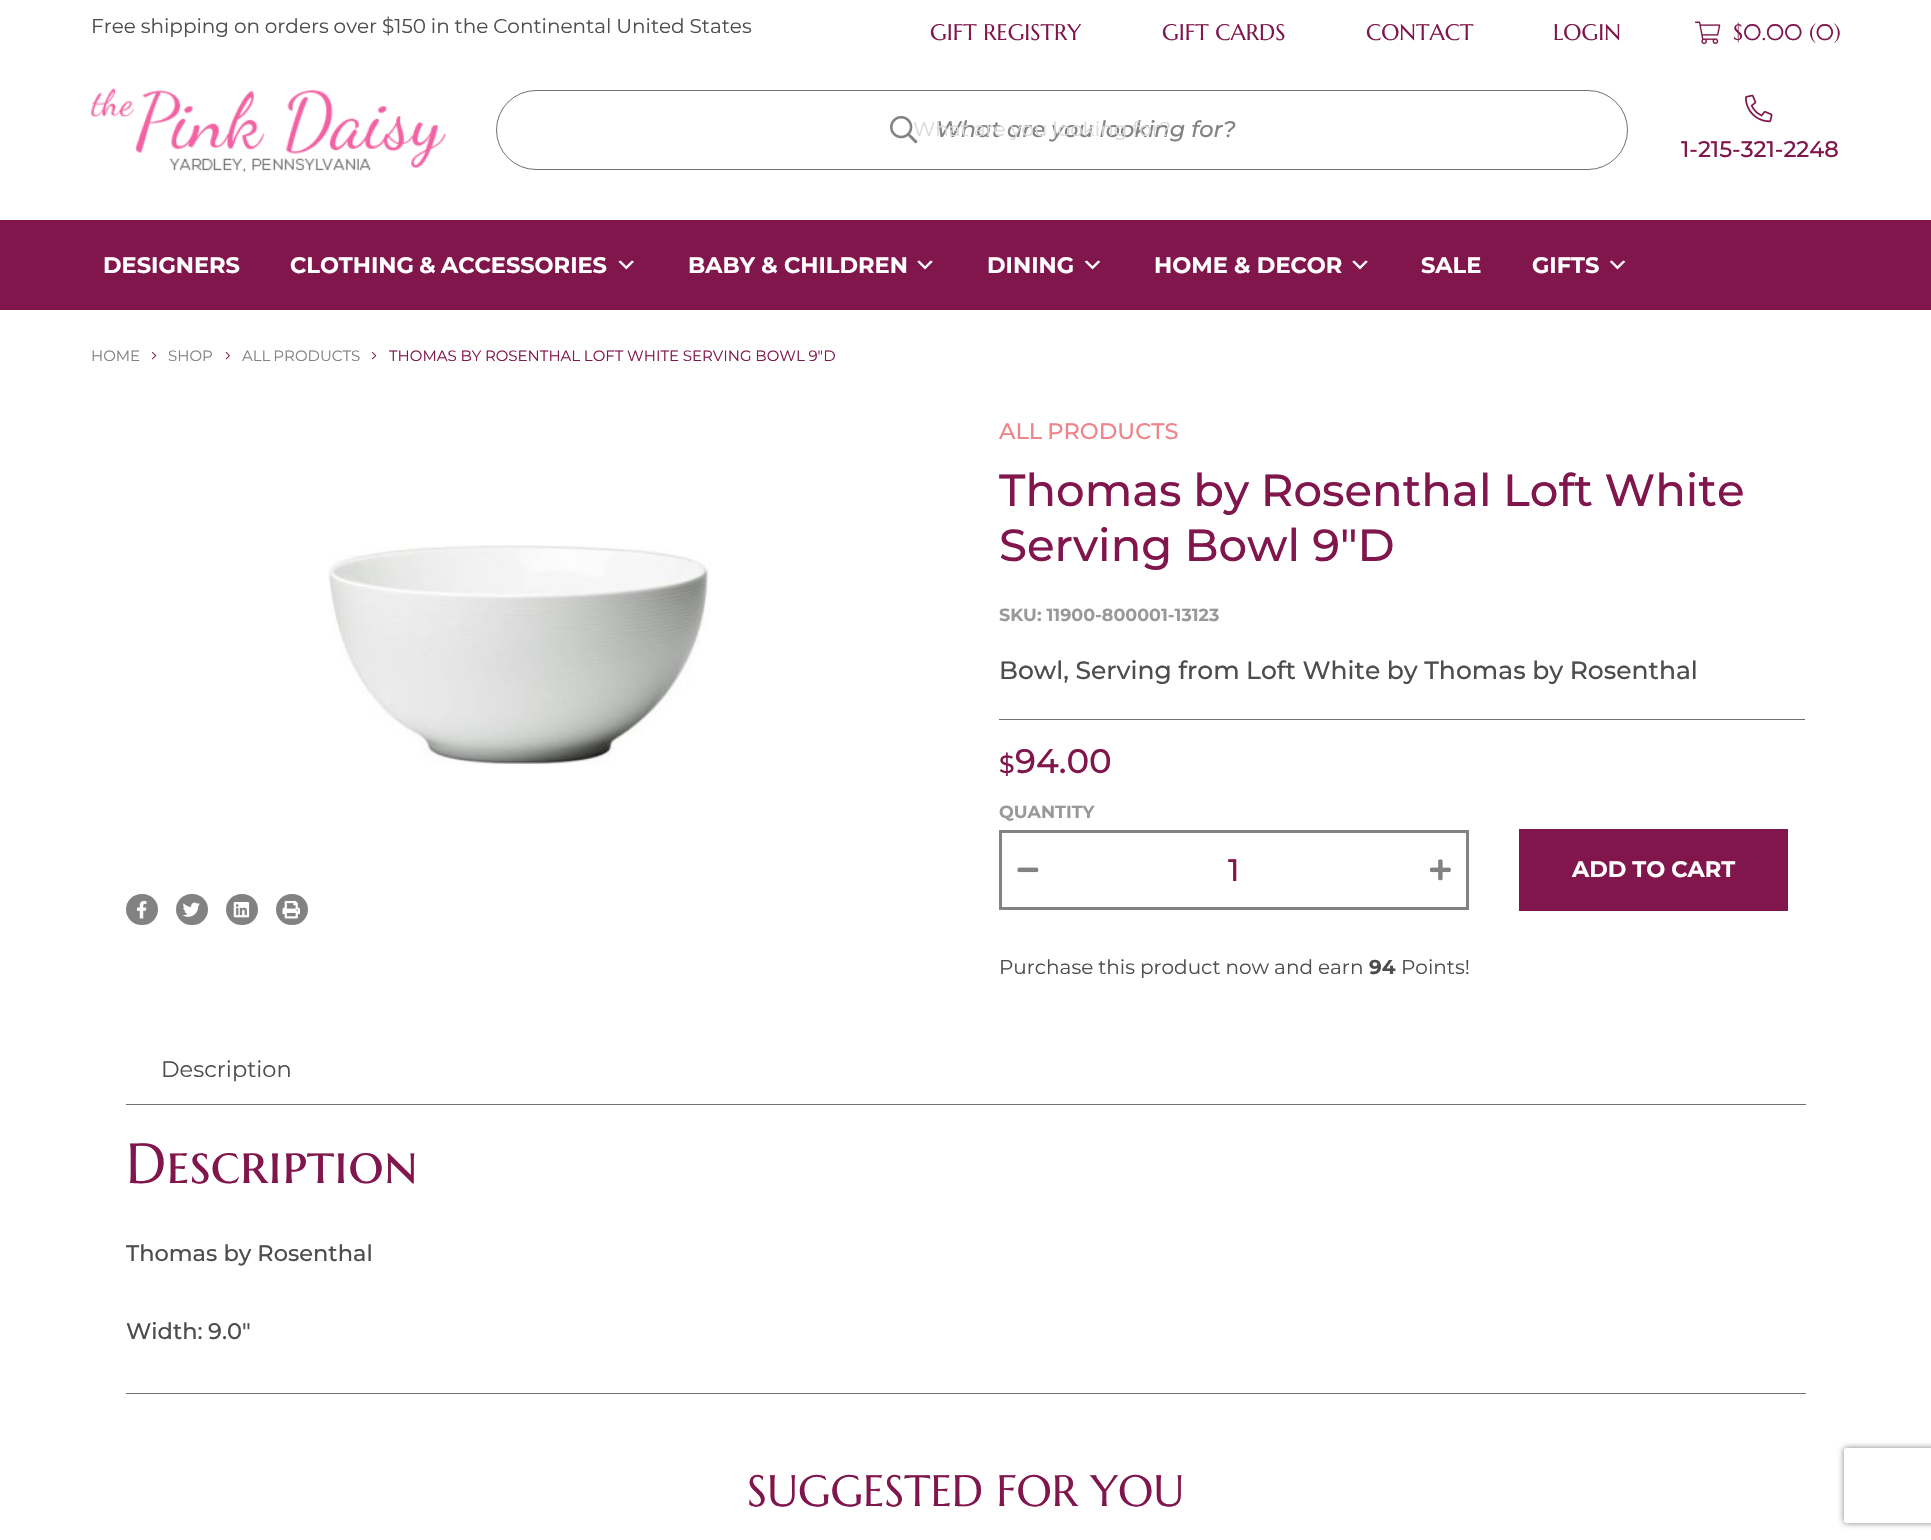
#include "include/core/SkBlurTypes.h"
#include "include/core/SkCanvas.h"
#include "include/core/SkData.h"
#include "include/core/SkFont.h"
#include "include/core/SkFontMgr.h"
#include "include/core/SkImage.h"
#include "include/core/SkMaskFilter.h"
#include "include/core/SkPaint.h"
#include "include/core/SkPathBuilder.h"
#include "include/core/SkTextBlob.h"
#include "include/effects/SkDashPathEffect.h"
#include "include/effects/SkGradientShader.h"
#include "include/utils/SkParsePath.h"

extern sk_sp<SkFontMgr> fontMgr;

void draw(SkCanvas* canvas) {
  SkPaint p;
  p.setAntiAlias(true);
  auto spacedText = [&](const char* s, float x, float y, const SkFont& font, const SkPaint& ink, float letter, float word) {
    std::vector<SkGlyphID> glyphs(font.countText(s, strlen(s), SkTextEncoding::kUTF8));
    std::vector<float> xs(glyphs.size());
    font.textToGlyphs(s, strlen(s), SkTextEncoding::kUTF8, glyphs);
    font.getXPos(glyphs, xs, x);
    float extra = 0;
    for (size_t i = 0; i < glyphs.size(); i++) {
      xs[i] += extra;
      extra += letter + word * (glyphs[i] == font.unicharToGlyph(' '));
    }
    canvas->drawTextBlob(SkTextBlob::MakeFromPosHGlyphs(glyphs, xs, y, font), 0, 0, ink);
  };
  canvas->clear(SK_ColorWHITE);
  canvas->drawImageRect(SkImages::DeferredFromEncodedData(SkData::MakeFromFileName("images/1.png")), SkRect::MakeLTRB(1695, 21, 1721, 44), SkSamplingOptions());
  canvas->drawImageRect(SkImages::DeferredFromEncodedData(SkData::MakeFromFileName("images/2.png")), SkRect::MakeLTRB(91, 88, 447, 172), SkSamplingOptions());
  p.setStyle(SkPaint::kStroke_Style);
  p.setStrokeWidth(1);
  p.setColor(SkColorSetRGB(112, 112, 112));
  canvas->drawRoundRect(SkRect::MakeLTRB(496.5f, 90.5f, 1627.5f, 169.5f), 39.5f, 39.5f, p);
  canvas->drawImageRect(SkImages::DeferredFromEncodedData(SkData::MakeFromFileName("images/3.png")), SkRect::MakeLTRB(890, 116, 918, 144), SkSamplingOptions());
  canvas->drawImageRect(SkImages::DeferredFromEncodedData(SkData::MakeFromFileName("images/4.png")), SkRect::MakeLTRB(1745, 94, 1773, 123), SkSamplingOptions());
  p.setStyle(SkPaint::kFill_Style);
  p.setColor(SkColorSetRGB(128, 22, 76));
  canvas->drawRect(SkRect::MakeLTRB(0, 220, 1931, 310), p);
  canvas->drawImageRect(SkImages::DeferredFromEncodedData(SkData::MakeFromFileName("images/5.png")), SkRect::MakeLTRB(618, 260, 634, 270), SkSamplingOptions());
  canvas->drawImageRect(SkImages::DeferredFromEncodedData(SkData::MakeFromFileName("images/6.png")), SkRect::MakeLTRB(917, 260, 933, 270), SkSamplingOptions());
  canvas->drawImageRect(SkImages::DeferredFromEncodedData(SkData::MakeFromFileName("images/7.png")), SkRect::MakeLTRB(1084, 260, 1101, 270), SkSamplingOptions());
  canvas->drawImageRect(SkImages::DeferredFromEncodedData(SkData::MakeFromFileName("images/6.png")), SkRect::MakeLTRB(1352, 260, 1368, 270), SkSamplingOptions());
  canvas->drawImageRect(SkImages::DeferredFromEncodedData(SkData::MakeFromFileName("images/7.png")), SkRect::MakeLTRB(1609, 260, 1626, 270), SkSamplingOptions());
  canvas->drawImageRect(SkImages::DeferredFromEncodedData(SkData::MakeFromFileName("images/8.png")), SkRect::MakeLTRB(151, 351, 157, 360), SkSamplingOptions());
  canvas->drawImageRect(SkImages::DeferredFromEncodedData(SkData::MakeFromFileName("images/9.png")), SkRect::MakeLTRB(225, 351, 230, 360), SkSamplingOptions());
  canvas->drawImageRect(SkImages::DeferredFromEncodedData(SkData::MakeFromFileName("images/8.png")), SkRect::MakeLTRB(371, 351, 377, 360), SkSamplingOptions());
  canvas->drawImageRect(SkImages::DeferredFromEncodedData(SkData::MakeFromFileName("images/10.png")), SkRect::MakeLTRB(328, 545, 711, 765), SkSamplingOptions());
  p.setColor(SkColorSetRGB(130, 130, 130));
  canvas->drawRoundRect(SkRect::MakeLTRB(126, 894, 158, 925), 15.5f, 15.5f, p);
  canvas->drawImageRect(SkImages::DeferredFromEncodedData(SkData::MakeFromFileName("images/11.png")), SkRect::MakeLTRB(137, 900, 147, 919), SkSamplingOptions());
  canvas->drawRoundRect(SkRect::MakeLTRB(176, 894, 208, 925), 15.5f, 15.5f, p);
  canvas->drawImageRect(SkImages::DeferredFromEncodedData(SkData::MakeFromFileName("images/12.png")), SkRect::MakeLTRB(182, 902, 200, 917), SkSamplingOptions());
  canvas->drawRoundRect(SkRect::MakeLTRB(226, 894, 258, 925), 15.5f, 15.5f, p);
  canvas->drawImageRect(SkImages::DeferredFromEncodedData(SkData::MakeFromFileName("images/13.png")), SkRect::MakeLTRB(233, 902, 250, 918), SkSamplingOptions());
  canvas->drawRoundRect(SkRect::MakeLTRB(276, 894, 308, 925), 15.5f, 15.5f, p);
  canvas->drawImageRect(SkImages::DeferredFromEncodedData(SkData::MakeFromFileName("images/14.png")), SkRect::MakeLTRB(282, 900, 300, 919), SkSamplingOptions());
  p.setColor(SkColorSetRGB(112, 112, 112));
  canvas->drawRect(SkRect::MakeLTRB(999, 719, 1805, 720), p);
  p.setStyle(SkPaint::kStroke_Style);
  p.setStrokeWidth(3);
  p.setColor(SkColorSetRGB(130, 130, 130));
  canvas->drawRect(SkRect::MakeLTRB(1000.5f, 831.5f, 1467.5f, 908.5f), p);
  canvas->drawImageRect(SkImages::DeferredFromEncodedData(SkData::MakeFromFileName("images/15.png")), SkRect::MakeLTRB(1430, 859, 1451, 881), SkSamplingOptions());
  canvas->drawImageRect(SkImages::DeferredFromEncodedData(SkData::MakeFromFileName("images/16.png")), SkRect::MakeLTRB(1017, 867, 1039, 873), SkSamplingOptions());
  p.setStyle(SkPaint::kFill_Style);
  p.setColor(SkColorSetRGB(128, 22, 76));
  canvas->drawRect(SkRect::MakeLTRB(1519, 829, 1788, 911), p);
  p.setColor(SkColorSetRGB(112, 112, 112));
  canvas->drawRect(SkRect::MakeLTRB(126, 1104, 1806, 1105), p);
  canvas->drawRect(SkRect::MakeLTRB(126, 1393, 1806, 1394), p);
  canvas->save();
  canvas->clipPath(SkPathBuilder(SkPathFillType::kEvenOdd).moveTo(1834, 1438).lineTo(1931, 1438).lineTo(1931, 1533).lineTo(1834, 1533).close().moveTo(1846.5f, 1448).lineTo(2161.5f, 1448).cubicTo(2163, 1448, 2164, 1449, 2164, 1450.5f).lineTo(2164, 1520.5f).cubicTo(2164, 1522, 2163, 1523, 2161.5f, 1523).lineTo(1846.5f, 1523).cubicTo(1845, 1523, 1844, 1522, 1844, 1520.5f).lineTo(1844, 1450.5f).cubicTo(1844, 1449, 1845, 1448, 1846.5f, 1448).close().detach(), true);
  p.setColor(SkColorSetRGB(128, 128, 128));
  p.setMaskFilter(SkMaskFilter::MakeBlur(kNormal_SkBlurStyle, 3));
  canvas->drawRoundRect(SkRect::MakeLTRB(1844, 1448, 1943, 1523), 2.5f, 2.5f, p);
  p.setMaskFilter(nullptr);
  canvas->restore();
  SkFont font1(fontMgr->matchFamilyStyle("Montserrat", SkFontStyle::Normal()), 20);
  font1.setSubpixel(true);
  p.setColor(SkColorSetRGB(77, 77, 77));
  spacedText("Free shipping on orders over $150 in the Continental United States", 91, 33, font1, p, 0, -0.4f);
  SkFont font2(fontMgr->matchFamilyStyle("Marcellus SC", SkFontStyle::Normal()), 22.5f);
  font2.setSubpixel(true);
  p.setColor(SkColorSetRGB(128, 22, 76));
  canvas->drawString("GIFT REGISTRY", 930, 40, font2, p);
  canvas->drawString("GIFT CARDS", 1162, 40, font2, p);
  canvas->drawString("CONTACT", 1366, 40, font2, p);
  canvas->drawString("LOGIN", 1553, 40, font2, p);
  canvas->drawString("$0.00 (0)", 1733, 40, font2, p);
  SkFont font3(fontMgr->matchFamilyStyle("Montserrat", SkFontStyle(100, SkFontStyle::kNormal_Width, SkFontStyle::kItalic_Slant)), 22.5f);
  font3.setSubpixel(true);
  p.setColor(SkColorSetRGB(130, 130, 130));
  canvas->drawString("What are you looking for?", 936, 137, font3, p);
  p.setColor(SkColorSetRGB(218, 218, 218));
  spacedText("What are you looking for?", 913, 136, font1, p, 0, -0.25f);
  SkFont font4(fontMgr->matchFamilyStyle("Montserrat", SkFontStyle(500, SkFontStyle::kNormal_Width, SkFontStyle::kUpright_Slant)), 22.5f);
  font4.setSubpixel(true);
  p.setColor(SkColorSetRGB(128, 22, 76));
  canvas->drawString("1-215-321-2248", 1681, 157, font4, p);
  SkFont font5(fontMgr->matchFamilyStyle("Montserrat", SkFontStyle::Bold()), 22.5f);
  font5.setSubpixel(true);
  p.setColor(SK_ColorWHITE);
  canvas->drawString("DESIGNERS", 103, 273, font5, p);
  spacedText("CLOTHING & ACCESSORIES", 290, 273, font5, p, 0, -1);
  canvas->drawString("BABY & CHILDREN", 688, 273, font5, p);
  canvas->drawString("DINING", 987, 273, font5, p);
  canvas->drawString("HOME & DECOR", 1154, 273, font5, p);
  canvas->drawString("SALE", 1421, 273, font5, p);
  canvas->drawString("GIFTS", 1532, 273, font5, p);
  SkFont font6(fontMgr->matchFamilyStyle("Montserrat", SkFontStyle::Normal()), 15);
  font6.setSubpixel(true);
  p.setColor(SkColorSetRGB(130, 130, 130));
  canvas->drawString("HOME", 91, 361, font6, p);
  canvas->drawString("SHOP", 168, 361, font6, p);
  spacedText("ALL PRODUCTS", 242, 361, font6, p, 0, -1);
  p.setColor(SkColorSetRGB(128, 22, 76));
  spacedText("THOMAS BY ROSENTHAL LOFT WHITE SERVING BOWL 9″D", 389, 361, font6, p, 0, -0.25f);
  p.setColor(SkColorSetRGB(239, 132, 138));
  spacedText("ALL PRODUCTS", 999, 439, font4, p, 0, -1);
  SkFont font7(fontMgr->matchFamilyStyle("Montserrat", SkFontStyle(500, SkFontStyle::kNormal_Width, SkFontStyle::kUpright_Slant)), 45);
  font7.setSubpixel(true);
  p.setColor(SkColorSetRGB(128, 22, 76));
  spacedText("Thomas by Rosenthal Loft White", 999, 506, font7, p, 0, -0.5f);
  canvas->drawString("Serving Bowl 9″D", 999, 561, font7, p);
  SkFont font8(fontMgr->matchFamilyStyle("Montserrat", SkFontStyle::Bold()), 17.5f);
  font8.setSubpixel(true);
  p.setColor(SkColorSetRGB(153, 153, 153));
  canvas->drawString("SKU: 11900-800001-13123", 999, 621, font8, p);
  SkFont font9(fontMgr->matchFamilyStyle("Montserrat", SkFontStyle(500, SkFontStyle::kNormal_Width, SkFontStyle::kUpright_Slant)), 25);
  font9.setSubpixel(true);
  p.setColor(SkColorSetRGB(77, 77, 77));
  spacedText("Bowl, Serving from Loft White by Thomas by Rosenthal", 999, 679, font9, p, 0, -0.25f);
  p.setColor(SkColorSetRGB(128, 22, 76));
  canvas->drawString("$", 999, 773, font9, p);
  SkFont font10(fontMgr->matchFamilyStyle("Montserrat", SkFontStyle(500, SkFontStyle::kNormal_Width, SkFontStyle::kUpright_Slant)), 34);
  font10.setSubpixel(true);
  canvas->drawString("94.00", 1015, 773, font10, p);
  p.setColor(SkColorSetRGB(153, 153, 153));
  canvas->drawString("QUANTITY", 999, 818, font8, p);
  SkFont font11(fontMgr->matchFamilyStyle("Montserrat", SkFontStyle(500, SkFontStyle::kNormal_Width, SkFontStyle::kUpright_Slant)), 31);
  font11.setSubpixel(true);
  p.setColor(SkColorSetRGB(128, 22, 76));
  canvas->drawString("1", 1228, 881, font11, p);
  p.setColor(SK_ColorWHITE);
  spacedText("ADD TO CART", 1572, 877, font5, p, 0, -0.4f);
  p.setColor(SkColorSetRGB(77, 77, 77));
  spacedText("Purchase this product now and earn", 999, 974, font1, p, 0, -0.25f);
  SkFont font12(fontMgr->matchFamilyStyle("Montserrat", SkFontStyle::Bold()), 20);
  font12.setSubpixel(true);
  canvas->drawString("94", 1369, 974, font12, p);
  canvas->drawString("Points!", 1401, 974, font1, p);
  SkFont font13(fontMgr->matchFamilyStyle("Montserrat", SkFontStyle::Normal()), 22.5f);
  font13.setSubpixel(true);
  canvas->drawString("Description", 161, 1077, font13, p);
  SkFont font14(fontMgr->matchFamilyStyle("Marcellus SC", SkFontStyle::Normal()), 56.25f);
  font14.setSubpixel(true);
  p.setColor(SkColorSetRGB(128, 22, 76));
  canvas->drawString("Description", 126, 1183, font14, p);
  p.setColor(SkColorSetRGB(77, 77, 77));
  canvas->drawString("Thomas by Rosenthal", 126, 1261, font4, p);
  canvas->drawString("Width:", 126, 1339, font4, p);
  canvas->drawString("9.0″", 208, 1339, font4, p);
  SkFont font15(fontMgr->matchFamilyStyle("Marcellus SC", SkFontStyle::Normal()), 43.75f);
  font15.setSubpixel(true);
  p.setColor(SkColorSetRGB(128, 22, 76));
  canvas->drawString("SUGGESTED FOR YOU", 747, 1506, font15, p);
}
